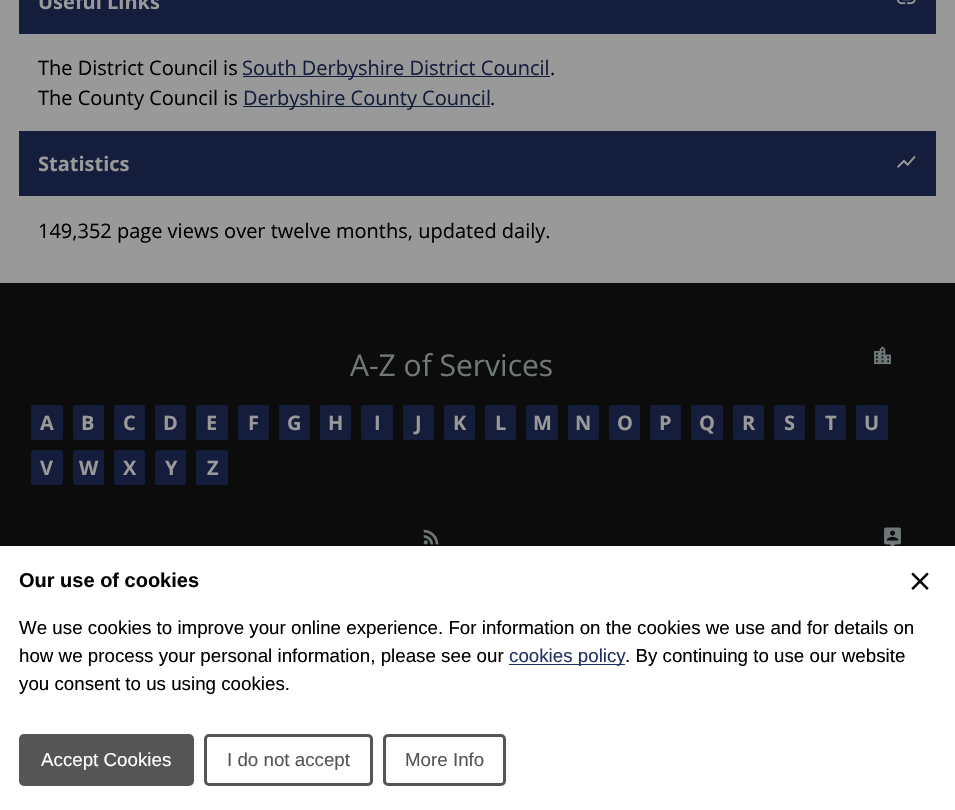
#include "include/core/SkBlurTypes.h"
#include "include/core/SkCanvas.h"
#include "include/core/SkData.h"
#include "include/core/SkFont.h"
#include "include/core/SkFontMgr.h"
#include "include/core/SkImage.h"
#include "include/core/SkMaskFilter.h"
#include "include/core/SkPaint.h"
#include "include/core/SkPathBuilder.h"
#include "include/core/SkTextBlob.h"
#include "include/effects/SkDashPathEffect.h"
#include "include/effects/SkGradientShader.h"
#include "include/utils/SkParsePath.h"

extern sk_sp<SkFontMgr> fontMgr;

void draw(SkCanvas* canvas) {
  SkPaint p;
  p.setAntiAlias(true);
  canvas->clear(SkColorSetRGB(153, 153, 153));
  p.setColor(SkColorSetRGB(20, 29, 59));
  canvas->drawRect(SkRect::MakeLTRB(19, 0, 936, 34), p);
  canvas->drawImageRect(SkImages::DeferredFromEncodedData(SkData::MakeFromFileName("images/1.png")), SkRect::MakeLTRB(897, 0, 916, 5), SkSamplingOptions());
  canvas->drawRect(SkRect::MakeLTRB(243, 76, 550, 77), p);
  canvas->drawRect(SkRect::MakeLTRB(243, 106, 490, 107), p);
  canvas->drawRect(SkRect::MakeLTRB(19, 131, 936, 196), p);
  canvas->drawImageRect(SkImages::DeferredFromEncodedData(SkData::MakeFromFileName("images/2.png")), SkRect::MakeLTRB(897, 155, 916, 168), SkSamplingOptions());
  p.setColor(SkColorSetRGB(12, 12, 12));
  canvas->drawRect(SkRect::MakeLTRB(0, 283, 955, 546), p);
  canvas->drawImageRect(SkImages::DeferredFromEncodedData(SkData::MakeFromFileName("images/3.png")), SkRect::MakeLTRB(874, 346, 891, 365), SkSamplingOptions());
  p.setColor(SkColorSetRGB(20, 29, 59));
  canvas->drawRoundRect(SkRect::MakeLTRB(31, 405, 63, 440), 2.5f, 2.5f, p);
  canvas->drawRoundRect(SkRect::MakeLTRB(73, 405, 104, 440), 2.5f, 2.5f, p);
  canvas->drawRoundRect(SkRect::MakeLTRB(114, 405, 145, 440), 2.5f, 2.5f, p);
  canvas->drawRoundRect(SkRect::MakeLTRB(155, 405, 186, 440), 2.5f, 2.5f, p);
  canvas->drawRoundRect(SkRect::MakeLTRB(196, 405, 228, 440), 2.5f, 2.5f, p);
  canvas->drawRoundRect(SkRect::MakeLTRB(238, 405, 269, 440), 2.5f, 2.5f, p);
  canvas->drawRoundRect(SkRect::MakeLTRB(279, 405, 310, 440), 2.5f, 2.5f, p);
  canvas->drawRoundRect(SkRect::MakeLTRB(320, 405, 351, 440), 2.5f, 2.5f, p);
  canvas->drawRoundRect(SkRect::MakeLTRB(361, 405, 393, 440), 2.5f, 2.5f, p);
  canvas->drawRoundRect(SkRect::MakeLTRB(403, 405, 434, 440), 2.5f, 2.5f, p);
  canvas->drawRoundRect(SkRect::MakeLTRB(444, 405, 475, 440), 2.5f, 2.5f, p);
  canvas->drawRoundRect(SkRect::MakeLTRB(485, 405, 516, 440), 2.5f, 2.5f, p);
  canvas->drawRoundRect(SkRect::MakeLTRB(526, 405, 558, 440), 2.5f, 2.5f, p);
  canvas->drawRoundRect(SkRect::MakeLTRB(568, 405, 599, 440), 2.5f, 2.5f, p);
  canvas->drawRoundRect(SkRect::MakeLTRB(609, 405, 640, 440), 2.5f, 2.5f, p);
  canvas->drawRoundRect(SkRect::MakeLTRB(650, 405, 681, 440), 2.5f, 2.5f, p);
  canvas->drawRoundRect(SkRect::MakeLTRB(691, 405, 723, 440), 2.5f, 2.5f, p);
  canvas->drawRoundRect(SkRect::MakeLTRB(733, 405, 764, 440), 2.5f, 2.5f, p);
  canvas->drawRoundRect(SkRect::MakeLTRB(774, 405, 805, 440), 2.5f, 2.5f, p);
  canvas->drawRoundRect(SkRect::MakeLTRB(815, 405, 846, 440), 2.5f, 2.5f, p);
  canvas->drawRoundRect(SkRect::MakeLTRB(856, 405, 888, 440), 2.5f, 2.5f, p);
  canvas->drawRoundRect(SkRect::MakeLTRB(31, 450, 63, 485), 2.5f, 2.5f, p);
  canvas->drawRoundRect(SkRect::MakeLTRB(73, 450, 104, 485), 2.5f, 2.5f, p);
  canvas->drawRoundRect(SkRect::MakeLTRB(114, 450, 145, 485), 2.5f, 2.5f, p);
  canvas->drawRoundRect(SkRect::MakeLTRB(155, 450, 186, 485), 2.5f, 2.5f, p);
  canvas->drawRoundRect(SkRect::MakeLTRB(196, 450, 228, 485), 2.5f, 2.5f, p);
  canvas->drawImageRect(SkImages::DeferredFromEncodedData(SkData::MakeFromFileName("images/4.png")), SkRect::MakeLTRB(423, 529, 439, 545), SkSamplingOptions());
  canvas->drawImageRect(SkImages::DeferredFromEncodedData(SkData::MakeFromFileName("images/5.png")), SkRect::MakeLTRB(884, 527, 901, 546), SkSamplingOptions());
  p.setColor(SK_ColorWHITE);
  canvas->drawRect(SkRect::MakeLTRB(0, 546, 955, 810), p);
  canvas->drawImageRect(SkImages::DeferredFromEncodedData(SkData::MakeFromFileName("images/6.png")), SkRect::MakeLTRB(911, 572, 929, 590), SkSamplingOptions());
  p.setColor(SkColorSetRGB(33, 49, 99));
  canvas->drawRect(SkRect::MakeLTRB(509, 664, 625, 665), p);
  p.setColor(SkColorSetRGB(85, 85, 85));
  canvas->drawRoundRect(SkRect::MakeLTRB(20.5f, 735.5f, 192.5f, 784.5f), 3.5f, 3.5f, p);
  p.setStyle(SkPaint::kStroke_Style);
  p.setStrokeWidth(3);
  canvas->drawRoundRect(SkRect::MakeLTRB(20.5f, 735.5f, 192.5f, 784.5f), 3.5f, 3.5f, p);
  canvas->drawRoundRect(SkRect::MakeLTRB(205.5f, 735.5f, 371.5f, 784.5f), 3.5f, 3.5f, p);
  canvas->drawRoundRect(SkRect::MakeLTRB(384.5f, 735.5f, 504.5f, 784.5f), 3.5f, 3.5f, p);
  SkFont font1(fontMgr->matchFamilyStyle("Open Sans", SkFontStyle::Bold()), 20);
  font1.setSubpixel(true);
  p.setStyle(SkPaint::kFill_Style);
  p.setColor(SkColorSetRGB(153, 153, 153));
  canvas->drawString("Useful Links", 38, 9, font1, p);
  SkFont font2(fontMgr->matchFamilyStyle("Open Sans", SkFontStyle::Normal()), 20);
  font2.setSubpixel(true);
  p.setColor(SK_ColorBLACK);
  canvas->drawString("The District Council is", 38, 75, font2, p);
  p.setColor(SkColorSetRGB(20, 29, 59));
  canvas->drawString("South Derbyshire District Council", 242, 75, font2, p);
  p.setColor(SK_ColorBLACK);
  canvas->drawString(".", 550, 75, font2, p);
  canvas->drawString("The County Council is", 38, 105, font2, p);
  p.setColor(SkColorSetRGB(20, 29, 59));
  canvas->drawString("Derbyshire County Council", 243, 105, font2, p);
  p.setColor(SK_ColorBLACK);
  canvas->drawString(".", 490, 105, font2, p);
  p.setColor(SkColorSetRGB(153, 153, 153));
  canvas->drawString("Statistics", 38, 171, font1, p);
  p.setColor(SK_ColorBLACK);
  canvas->drawString("149,352 page views over twelve months, updated daily.", 38, 238, font2, p);
  SkFont font3(fontMgr->matchFamilyStyle("Open Sans", SkFontStyle::Normal()), 30);
  font3.setSubpixel(true);
  p.setColor(SkColorSetRGB(112, 119, 121));
  canvas->drawString("A-Z of Services", 350, 376, font3, p);
  p.setColor(SkColorSetRGB(153, 153, 153));
  canvas->drawString("A", 40, 430, font1, p);
  canvas->drawString("B", 81, 430, font1, p);
  canvas->drawString("C", 123, 430, font1, p);
  canvas->drawString("D", 163, 430, font1, p);
  canvas->drawString("E", 206, 430, font1, p);
  canvas->drawString("F", 248, 430, font1, p);
  canvas->drawString("G", 287, 430, font1, p);
  canvas->drawString("H", 328, 430, font1, p);
  canvas->drawString("I", 374, 430, font1, p);
  canvas->drawString("J", 415, 430, font1, p);
  canvas->drawString("K", 453, 430, font1, p);
  canvas->drawString("L", 495, 430, font1, p);
  canvas->drawString("M", 533, 430, font1, p);
  canvas->drawString("N", 575, 430, font1, p);
  canvas->drawString("O", 617, 430, font1, p);
  canvas->drawString("P", 659, 430, font1, p);
  canvas->drawString("Q", 699, 430, font1, p);
  canvas->drawString("R", 742, 430, font1, p);
  canvas->drawString("S", 784, 430, font1, p);
  canvas->drawString("T", 825, 430, font1, p);
  canvas->drawString("U", 864, 430, font1, p);
  canvas->drawString("V", 40, 475, font1, p);
  canvas->drawString("W", 79, 475, font1, p);
  canvas->drawString("X", 123, 475, font1, p);
  canvas->drawString("Y", 165, 475, font1, p);
  canvas->drawString("Z", 207, 475, font1, p);
  SkFont font4(fontMgr->matchFamilyStyle("Liberation Sans", SkFontStyle::Bold()), 20);
  font4.setSubpixel(true);
  p.setColor(SK_ColorBLACK);
  canvas->drawString("Our use of cookies", 19, 587, font4, p);
  SkFont font5(fontMgr->matchFamilyStyle("Liberation Sans", SkFontStyle::Normal()), 18.75f);
  font5.setSubpixel(true);
  canvas->drawString("We use cookies to improve your online experience. For information on the cookies we use and for details on", 19, 634, font5, p);
  canvas->drawString("how we process your personal information, please see our", 19, 662, font5, p);
  p.setColor(SkColorSetRGB(33, 49, 99));
  canvas->drawString("cookies policy", 509, 662, font5, p);
  p.setColor(SK_ColorBLACK);
  canvas->drawString(". By continuing to use our website", 625, 662, font5, p);
  canvas->drawString("you consent to us using cookies.", 19, 690, font5, p);
  p.setColor(SK_ColorWHITE);
  canvas->drawString("Accept Cookies", 41, 766, font5, p);
  p.setColor(SkColorSetRGB(85, 85, 85));
  canvas->drawString("I do not accept", 227, 766, font5, p);
  canvas->drawString("More Info", 405, 766, font5, p);
}
